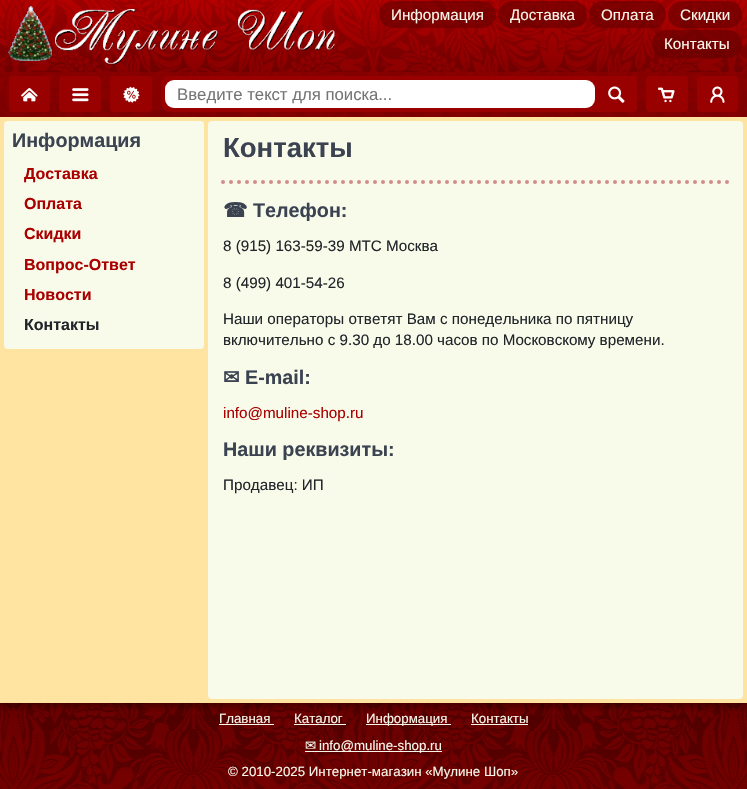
#include "include/core/SkBlurTypes.h"
#include "include/core/SkCanvas.h"
#include "include/core/SkData.h"
#include "include/core/SkFont.h"
#include "include/core/SkFontMgr.h"
#include "include/core/SkImage.h"
#include "include/core/SkMaskFilter.h"
#include "include/core/SkPaint.h"
#include "include/core/SkPathBuilder.h"
#include "include/core/SkTextBlob.h"
#include "include/effects/SkDashPathEffect.h"
#include "include/effects/SkGradientShader.h"
#include "include/utils/SkParsePath.h"

extern sk_sp<SkFontMgr> fontMgr;

void draw(SkCanvas* canvas) {
  SkPaint p;
  p.setAntiAlias(true);
  canvas->clear(SkColorSetRGB(255, 227, 160));
  canvas->drawImageRect(SkImages::DeferredFromEncodedData(SkData::MakeFromFileName("images/1.png")), SkRect::MakeLTRB(0, 0, 747, 117), SkSamplingOptions());
  canvas->drawImageRect(SkImages::DeferredFromEncodedData(SkData::MakeFromFileName("images/2.png")), SkRect::MakeLTRB(8, 6, 52, 61), SkSamplingOptions());
  canvas->drawImageRect(SkImages::DeferredFromEncodedData(SkData::MakeFromFileName("images/3.png")), SkRect::MakeLTRB(55, 9, 335, 65), SkSamplingOptions());
  p.setColor(SkColorSetARGB(153, 100, 0, 0));
  canvas->drawRoundRect(SkRect::MakeLTRB(379, 1, 496, 28), 13.5f, 13.5f, p);
  canvas->drawRoundRect(SkRect::MakeLTRB(498, 1, 587, 28), 13.5f, 13.5f, p);
  canvas->drawRoundRect(SkRect::MakeLTRB(589, 1, 666, 28), 13.5f, 13.5f, p);
  canvas->drawRoundRect(SkRect::MakeLTRB(668, 1, 742, 28), 13.5f, 13.5f, p);
  canvas->drawRoundRect(SkRect::MakeLTRB(652, 30, 742, 58), 14, 14, p);
  p.setColor(SkColorSetARGB(179, 140, 0, 0));
  canvas->drawRect(SkRect::MakeLTRB(0, 72, 747, 117), p);
  p.setColor(SkColorSetRGB(153, 0, 0));
  canvas->drawRoundRect(SkRect::MakeLTRB(9, 76, 50, 112), 4, 4, p);
  canvas->drawImageRect(SkImages::DeferredFromEncodedData(SkData::MakeFromFileName("images/4.png")), SkRect::MakeLTRB(21, 88, 38, 102), SkSamplingOptions());
  canvas->drawRoundRect(SkRect::MakeLTRB(59, 76, 101, 112), 4, 4, p);
  canvas->drawImageRect(SkImages::DeferredFromEncodedData(SkData::MakeFromFileName("images/5.png")), SkRect::MakeLTRB(72, 88, 89, 102), SkSamplingOptions());
  canvas->drawRoundRect(SkRect::MakeLTRB(110, 76, 152, 112), 4, 4, p);
  canvas->drawImageRect(SkImages::DeferredFromEncodedData(SkData::MakeFromFileName("images/6.png")), SkRect::MakeLTRB(123, 86, 140, 103), SkSamplingOptions());
  canvas->drawPath(SkPathBuilder().moveTo(170, 76).lineTo(633, 76).cubicTo(635, 76, 637, 78, 637, 80).lineTo(637, 108).cubicTo(637, 110, 635, 112, 633, 112).lineTo(170, 112).cubicTo(165, 112, 161, 108, 161, 103).lineTo(161, 85).cubicTo(161, 80, 165, 76, 170, 76).close().detach(), p);
  p.setColor(SK_ColorWHITE);
  canvas->drawRoundRect(SkRect::MakeLTRB(165, 80, 595, 108), 9, 9, p);
  p.setColor(SkColorSetRGB(153, 0, 0));
  canvas->drawRoundRect(SkRect::MakeLTRB(595, 76, 637, 112), 4, 4, p);
  canvas->drawImageRect(SkImages::DeferredFromEncodedData(SkData::MakeFromFileName("images/7.png")), SkRect::MakeLTRB(608, 86, 625, 103), SkSamplingOptions());
  canvas->drawRoundRect(SkRect::MakeLTRB(646, 76, 688, 112), 4, 4, p);
  canvas->drawImageRect(SkImages::DeferredFromEncodedData(SkData::MakeFromFileName("images/8.png")), SkRect::MakeLTRB(658, 87, 675, 103), SkSamplingOptions());
  canvas->drawRoundRect(SkRect::MakeLTRB(697, 76, 738, 112), 4, 4, p);
  canvas->drawImageRect(SkImages::DeferredFromEncodedData(SkData::MakeFromFileName("images/9.png")), SkRect::MakeLTRB(710, 86, 725, 103), SkSamplingOptions());
  p.setColor(SkColorSetRGB(248, 250, 234));
  canvas->drawRoundRect(SkRect::MakeLTRB(4, 121, 204, 349), 4, 4, p);
  canvas->drawRoundRect(SkRect::MakeLTRB(208, 121, 743, 699), 4, 4, p);
  p.setStyle(SkPaint::kStroke_Style);
  p.setStrokeWidth(4);
  p.setStrokeCap(SkPaint::kRound_Cap);
  p.setColor(SkColorSetRGB(209, 140, 140));
  p.setPathEffect(SkDashPathEffect::Make({{0, 8}}, 0));
  canvas->drawPath(SkPathBuilder().moveTo(223, 182).lineTo(728, 182).detach(), p);
  p.setPathEffect(nullptr);
  canvas->drawImageRect(SkImages::DeferredFromEncodedData(SkData::MakeFromFileName("images/10.png")), SkRect::MakeLTRB(0, 703, 747, 789), SkSamplingOptions());
  p.setStyle(SkPaint::kFill_Style);
  p.setColor(SkColorSetRGB(248, 246, 234));
  canvas->drawRect(SkRect::MakeLTRB(219, 724, 274, 725), p);
  canvas->drawRect(SkRect::MakeLTRB(294, 724, 346, 725), p);
  canvas->drawRect(SkRect::MakeLTRB(366, 724, 451, 725), p);
  canvas->drawRect(SkRect::MakeLTRB(471, 724, 528, 725), p);
  canvas->drawRect(SkRect::MakeLTRB(305, 751, 442, 752), p);
  SkFont font1(fontMgr->matchFamilyStyle("Liberation Sans", SkFontStyle::Normal()), 15.2f);
  font1.setSubpixel(true);
  canvas->drawString("Информация", 391, 20, font1, p);
  canvas->drawString("Доставка", 510, 20, font1, p);
  canvas->drawString("Оплата", 601, 20, font1, p);
  canvas->drawString("Скидки", 680, 20, font1, p);
  canvas->drawString("Контакты", 664, 49, font1, p);
  SkFont font2(fontMgr->matchFamilyStyle("Liberation Sans", SkFontStyle::Normal()), 16.75f);
  font2.setSubpixel(true);
  p.setColor(SkColorSetRGB(117, 117, 117));
  canvas->drawString("Введите текст для поиска...", 177, 100, font2, p);
  SkFont font3(fontMgr->matchFamilyStyle("Liberation Sans", SkFontStyle::Bold()), 19.75f);
  font3.setSubpixel(true);
  p.setColor(SkColorSetRGB(59, 67, 81));
  canvas->drawString("Информация", 12, 147, font3, p);
  SkFont font4(fontMgr->matchFamilyStyle("Liberation Sans", SkFontStyle::Bold()), 16);
  font4.setSubpixel(true);
  p.setColor(SkColorSetRGB(170, 0, 0));
  canvas->drawString("Доставка", 24, 179, font4, p);
  canvas->drawString("Оплата", 24, 209, font4, p);
  canvas->drawString("Скидки", 24, 239, font4, p);
  canvas->drawString("Вопрос-Ответ", 24, 270, font4, p);
  canvas->drawString("Новости", 24, 300, font4, p);
  p.setColor(SkColorSetRGB(33, 37, 41));
  canvas->drawString("Контакты", 24, 330, font4, p);
  SkFont font5(fontMgr->matchFamilyStyle("Liberation Sans", SkFontStyle::Bold()), 27.5f);
  font5.setSubpixel(true);
  p.setColor(SkColorSetRGB(59, 67, 81));
  canvas->drawString("Контакты", 223, 157, font5, p);
  SkFont font6(fontMgr->matchFamilyStyle("DejaVu Sans", SkFontStyle::Bold()), 19.75f);
  font6.setSubpixel(true);
  canvas->drawString("☎", 223, 217, font6, p);
  canvas->drawString("Телефон:", 253, 217, font3, p);
  p.setColor(SkColorSetRGB(33, 37, 41));
  canvas->drawString("8 (915) 163-59-39 МТС Москва", 223, 251, font1, p);
  canvas->drawString("8 (499) 401-54-26", 223, 288, font1, p);
  canvas->drawString("Наши операторы ответят Вам с понедельника по пятницу", 223, 324, font1, p);
  canvas->drawString("включительно с 9.30 до 18.00 часов по Московскому времени.", 223, 345, font1, p);
  p.setColor(SkColorSetRGB(59, 67, 81));
  canvas->drawString("✉", 223, 384, font6, p);
  canvas->drawString("Е-mail:", 245, 384, font3, p);
  p.setColor(SkColorSetRGB(170, 0, 0));
  canvas->drawString("info@muline-shop.ru", 223, 418, font1, p);
  p.setColor(SkColorSetRGB(59, 67, 81));
  canvas->drawString("Наши реквизиты:", 223, 456, font3, p);
  p.setColor(SkColorSetRGB(33, 37, 41));
  canvas->drawString("Продавец: ИП", 223, 490, font1, p);
  SkFont font7(fontMgr->matchFamilyStyle("Liberation Sans", SkFontStyle::Normal()), 13.3f);
  font7.setSubpixel(true);
  p.setColor(SkColorSetRGB(248, 246, 234));
  canvas->drawString("Главная", 219, 723, font7, p);
  canvas->drawString("Каталог", 294, 723, font7, p);
  canvas->drawString("Информация", 366, 723, font7, p);
  canvas->drawString("Контакты", 471, 723, font7, p);
  SkFont font8(fontMgr->matchFamilyStyle("DejaVu Sans", SkFontStyle::Normal()), 13.3f);
  font8.setSubpixel(true);
  canvas->drawString("✉", 305, 750, font8, p);
  canvas->drawString("info@muline-shop.ru", 319, 750, font7, p);
  canvas->drawString("© 2010-2025 Интернет-магазин «Мулине Шоп»", 228, 776, font7, p);
}
